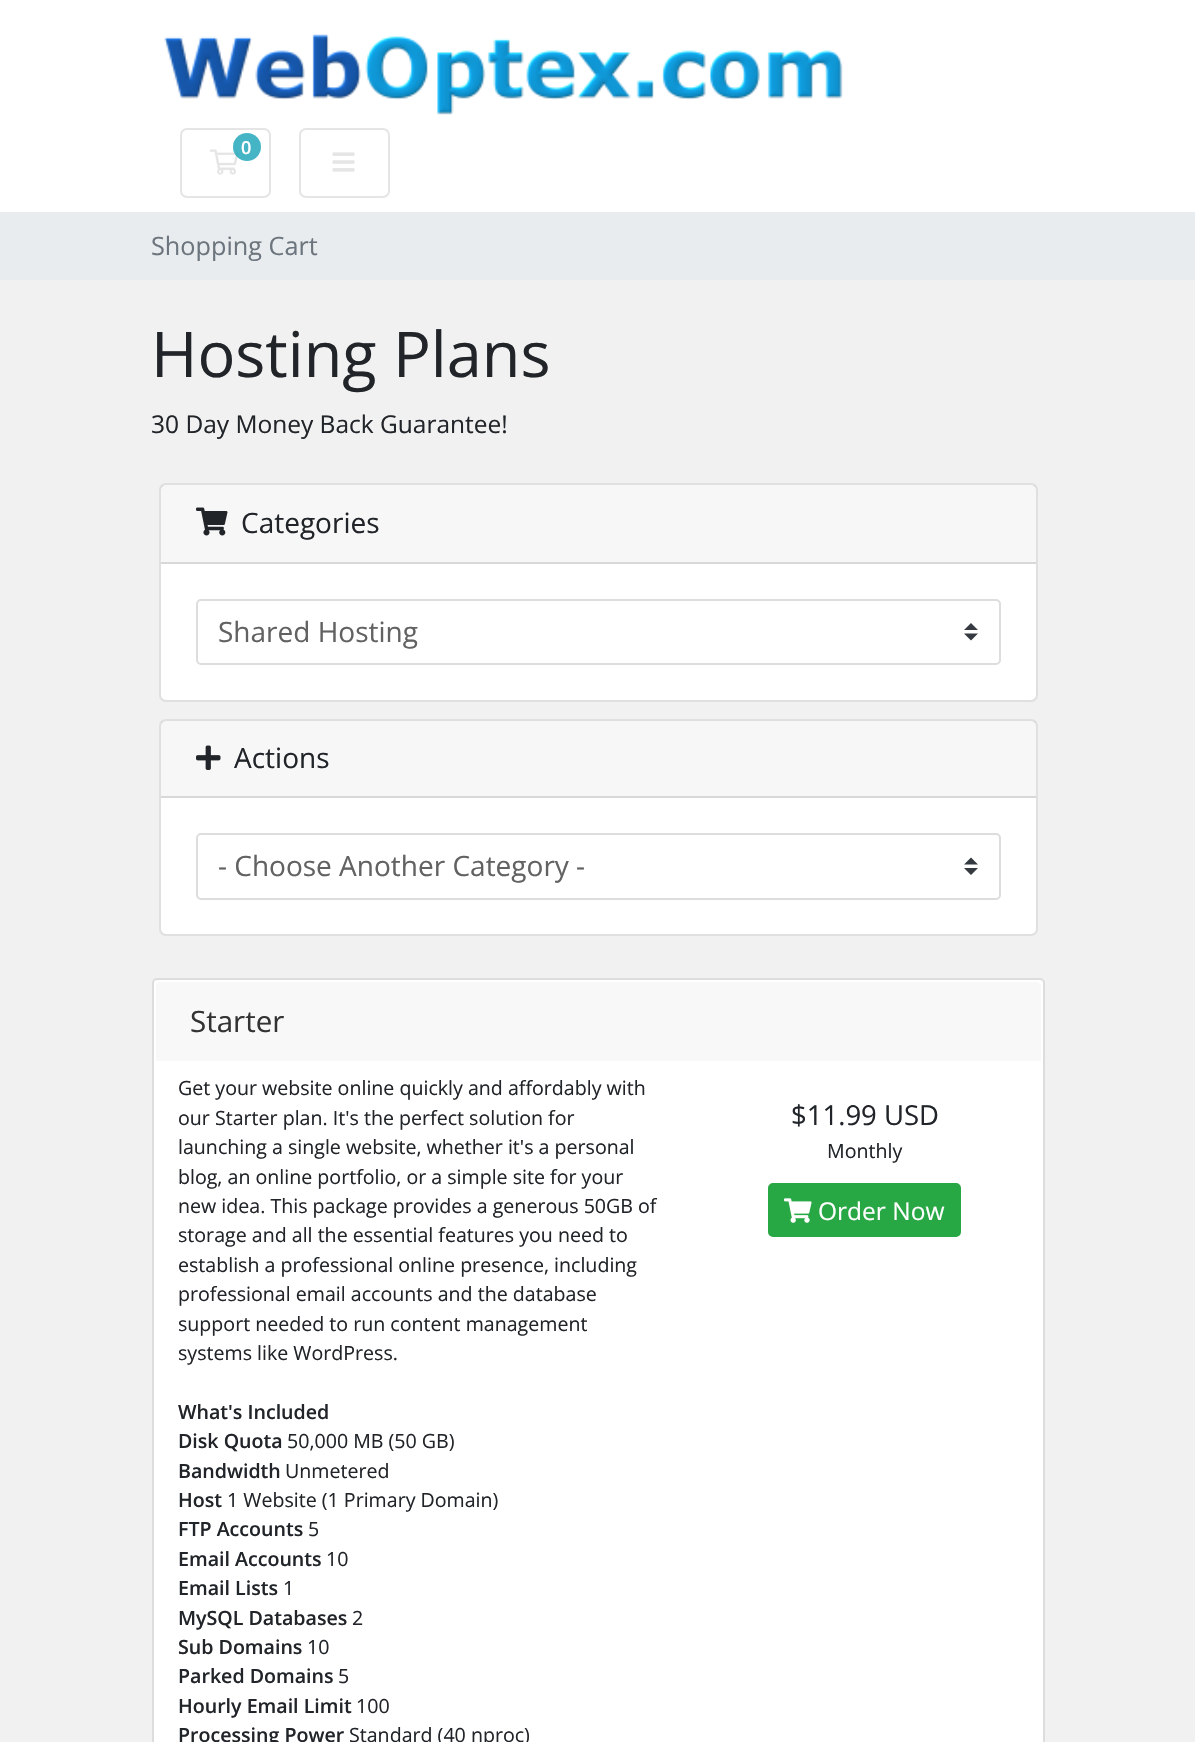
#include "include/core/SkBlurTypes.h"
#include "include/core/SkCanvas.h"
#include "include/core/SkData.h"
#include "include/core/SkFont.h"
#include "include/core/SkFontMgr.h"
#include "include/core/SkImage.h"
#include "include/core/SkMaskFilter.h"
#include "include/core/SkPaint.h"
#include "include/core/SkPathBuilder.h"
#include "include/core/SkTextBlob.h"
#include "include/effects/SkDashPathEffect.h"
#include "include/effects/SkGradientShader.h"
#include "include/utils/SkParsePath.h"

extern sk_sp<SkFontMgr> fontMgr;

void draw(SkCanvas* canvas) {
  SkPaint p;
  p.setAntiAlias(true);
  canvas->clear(SkColorSetRGB(241, 241, 241));
  p.setColor(SK_ColorWHITE);
  canvas->drawRect(SkRect::MakeLTRB(0, 0, 1195, 212), p);
  canvas->drawImageRect(SkImages::DeferredFromEncodedData(SkData::MakeFromFileName("images/1.png")), SkRect::MakeLTRB(164, 34, 843, 115), SkSamplingOptions());
  p.setStyle(SkPaint::kStroke_Style);
  p.setStrokeWidth(2);
  p.setColor(SkColorSetRGB(229, 229, 229));
  canvas->drawRoundRect(SkRect::MakeLTRB(181, 129, 270, 197), 6, 6, p);
  canvas->drawImageRect(SkImages::DeferredFromEncodedData(SkData::MakeFromFileName("images/2.png")), SkRect::MakeLTRB(210, 149, 239, 175), SkSamplingOptions());
  p.setStyle(SkPaint::kFill_Style);
  p.setColor(SkColorSetARGB(204, 23, 162, 184));
  canvas->drawCircle(247, 147, 14, p);
  p.setStyle(SkPaint::kStroke_Style);
  p.setColor(SkColorSetRGB(229, 229, 229));
  canvas->drawRoundRect(SkRect::MakeLTRB(300, 129, 389, 197), 6, 6, p);
  canvas->drawImageRect(SkImages::DeferredFromEncodedData(SkData::MakeFromFileName("images/3.png")), SkRect::MakeLTRB(332, 152, 355, 172), SkSamplingOptions());
  p.setStyle(SkPaint::kFill_Style);
  p.setColor(SkColorSetRGB(233, 236, 239));
  canvas->drawRect(SkRect::MakeLTRB(0, 212, 1195, 280), p);
  p.setColor(SK_ColorWHITE);
  canvas->drawRoundRect(SkRect::MakeLTRB(159, 483, 1038, 702), 7, 7, p);
  p.setStyle(SkPaint::kStroke_Style);
  p.setColor(SkColorSetARGB(31, 0, 0, 0));
  canvas->drawRoundRect(SkRect::MakeLTRB(160, 484, 1037, 701), 6, 6, p);
  p.setStyle(SkPaint::kFill_Style);
  p.setColor(SkColorSetARGB(8, 0, 0, 0));
  canvas->drawRect(SkRect::MakeLTRB(161, 485, 1036, 562), p);
  p.setColor(SkColorSetRGB(216, 216, 216));
  canvas->drawRect(SkRect::MakeLTRB(161, 562, 1036, 564), p);
  canvas->drawImageRect(SkImages::DeferredFromEncodedData(SkData::MakeFromFileName("images/4.png")), SkRect::MakeLTRB(196, 507, 228, 536), SkSamplingOptions());
  p.setColor(SkColorSetRGB(52, 58, 64));
  canvas->drawPath(SkPathBuilder().moveTo(971, 623).lineTo(964, 630).lineTo(978, 630).close().moveTo(971, 640.5f).lineTo(964, 633.5f).lineTo(978, 633.5f).close().detach(), p);
  p.setStyle(SkPaint::kStroke_Style);
  p.setColor(SkColorSetRGB(221, 221, 221));
  canvas->drawRoundRect(SkRect::MakeLTRB(197, 600, 1000, 664), 4, 4, p);
  p.setStyle(SkPaint::kFill_Style);
  p.setColor(SK_ColorWHITE);
  canvas->drawRoundRect(SkRect::MakeLTRB(159, 719, 1038, 936), 7, 7, p);
  p.setStyle(SkPaint::kStroke_Style);
  p.setColor(SkColorSetARGB(31, 0, 0, 0));
  canvas->drawRoundRect(SkRect::MakeLTRB(160, 720, 1037, 935), 6, 6, p);
  p.setStyle(SkPaint::kFill_Style);
  p.setColor(SkColorSetARGB(8, 0, 0, 0));
  canvas->drawRect(SkRect::MakeLTRB(161, 721, 1036, 796), p);
  p.setColor(SkColorSetRGB(216, 216, 216));
  canvas->drawRect(SkRect::MakeLTRB(161, 796, 1036, 798), p);
  canvas->drawImageRect(SkImages::DeferredFromEncodedData(SkData::MakeFromFileName("images/5.png")), SkRect::MakeLTRB(196, 745, 221, 770), SkSamplingOptions());
  p.setColor(SkColorSetRGB(52, 58, 64));
  canvas->drawPath(SkPathBuilder().moveTo(971, 857.5f).lineTo(964, 864.5f).lineTo(978, 864.5f).close().moveTo(971, 875).lineTo(964, 868).lineTo(978, 868).close().detach(), p);
  p.setStyle(SkPaint::kStroke_Style);
  p.setColor(SkColorSetRGB(221, 221, 221));
  canvas->drawRoundRect(SkRect::MakeLTRB(197, 834, 1000, 899), 4, 4, p);
  p.setStyle(SkPaint::kFill_Style);
  p.setColor(SK_ColorWHITE);
  canvas->drawRoundRect(SkRect::MakeLTRB(153, 979, 1044, 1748), 4, 4, p);
  p.setStyle(SkPaint::kStroke_Style);
  p.setColor(SkColorSetRGB(221, 221, 221));
  canvas->drawRoundRect(SkRect::MakeLTRB(153, 979, 1044, 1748), 4, 4, p);
  p.setStyle(SkPaint::kFill_Style);
  p.setColor(SkColorSetRGB(248, 248, 248));
  canvas->drawPath(SkPathBuilder().moveTo(161, 982).lineTo(1036, 982).cubicTo(1039, 982, 1041, 984, 1041, 987).lineTo(1041, 1061).lineTo(156, 1061).lineTo(156, 987).cubicTo(156, 984, 158, 982, 161, 982).close().detach(), p);
  p.setColor(SkColorSetRGB(40, 167, 69));
  canvas->drawRoundRect(SkRect::MakeLTRB(769, 1184, 960, 1236), 4, 4, p);
  p.setStyle(SkPaint::kStroke_Style);
  canvas->drawRoundRect(SkRect::MakeLTRB(769, 1184, 960, 1236), 4, 4, p);
  canvas->drawImageRect(SkImages::DeferredFromEncodedData(SkData::MakeFromFileName("images/6.png")), SkRect::MakeLTRB(784, 1198, 812, 1223), SkSamplingOptions());
  SkFont font1(fontMgr->matchFamilyStyle("Open Sans", SkFontStyle(600, SkFontStyle::kNormal_Width, SkFontStyle::kUpright_Slant)), 18);
  font1.setSubpixel(true);
  p.setStyle(SkPaint::kFill_Style);
  p.setColor(SK_ColorWHITE);
  canvas->drawString("0", 241, 154, font1, p);
  SkFont font2(fontMgr->matchFamilyStyle("Open Sans", SkFontStyle::Normal()), 25.25f);
  font2.setSubpixel(true);
  p.setColor(SkColorSetRGB(108, 117, 125));
  canvas->drawString("Shopping Cart", 151, 255, font2, p);
  SkFont font3(fontMgr->matchFamilyStyle("Open Sans", SkFontStyle::Normal()), 63);
  font3.setSubpixel(true);
  p.setColor(SkColorSetRGB(33, 37, 41));
  canvas->drawString("Hosting Plans", 151, 377, font3, p);
  SkFont font4(fontMgr->matchFamilyStyle("Open Sans", SkFontStyle::Normal()), 24.5f);
  font4.setSubpixel(true);
  canvas->drawString("30 Day Money Back Guarantee!", 151, 433, font4, p);
  SkFont font5(fontMgr->matchFamilyStyle("Open Sans", SkFontStyle::Normal()), 28);
  font5.setSubpixel(true);
  canvas->drawString("Categories", 241, 533, font5, p);
  p.setColor(SkColorSetRGB(98, 98, 98));
  canvas->drawString("Shared Hosting", 218, 642, font5, p);
  p.setColor(SkColorSetRGB(33, 37, 41));
  canvas->drawString("Actions", 234, 768, font5, p);
  p.setColor(SkColorSetRGB(98, 98, 98));
  canvas->drawString("- Choose Another Category -", 218, 876, font5, p);
  SkFont font6(fontMgr->matchFamilyStyle("Open Sans", SkFontStyle::Normal()), 29.5f);
  font6.setSubpixel(true);
  p.setColor(SkColorSetRGB(51, 51, 51));
  canvas->drawString("Starter", 190, 1032, font6, p);
  SkFont font7(fontMgr->matchFamilyStyle("Open Sans", SkFontStyle::Normal()), 19.6f);
  font7.setSubpixel(true);
  p.setColor(SkColorSetRGB(33, 37, 41));
  canvas->drawString("Get your website online quickly and affordably with", 178, 1095, font7, p);
  canvas->drawString("our Starter plan. It's the perfect solution for", 178, 1125, font7, p);
  canvas->drawString("launching a single website, whether it's a personal", 178, 1154, font7, p);
  canvas->drawString("blog, an online portfolio, or a simple site for your", 178, 1184, font7, p);
  canvas->drawString("new idea. This package provides a generous 50GB of", 178, 1213, font7, p);
  canvas->drawString("storage and all the essential features you need to", 178, 1242, font7, p);
  canvas->drawString("establish a professional online presence, including", 178, 1272, font7, p);
  canvas->drawString("professional email accounts and the database", 178, 1301, font7, p);
  canvas->drawString("support needed to run content management", 178, 1331, font7, p);
  canvas->drawString("systems like WordPress.", 178, 1360, font7, p);
  SkFont font8(fontMgr->matchFamilyStyle("Open Sans", SkFontStyle(600, SkFontStyle::kNormal_Width, SkFontStyle::kUpright_Slant)), 19.6f);
  font8.setSubpixel(true);
  canvas->drawString("What's Included", 178, 1419, font8, p);
  canvas->drawString("Disk Quota", 178, 1448, font8, p);
  canvas->drawString("50,000 MB (50 GB)", 287, 1448, font7, p);
  canvas->drawString("Bandwidth", 178, 1478, font8, p);
  canvas->drawString("Unmetered", 285, 1478, font7, p);
  canvas->drawString("Host", 178, 1507, font8, p);
  canvas->drawString("1 Website (1 Primary Domain)", 227, 1507, font7, p);
  canvas->drawString("FTP Accounts", 178, 1536, font8, p);
  canvas->drawString("5", 308, 1536, font7, p);
  canvas->drawString("Email Accounts", 178, 1566, font8, p);
  canvas->drawString("10", 326, 1566, font7, p);
  canvas->drawString("Email Lists", 178, 1595, font8, p);
  canvas->drawString("1", 283, 1595, font7, p);
  canvas->drawString("MySQL Databases", 178, 1625, font8, p);
  canvas->drawString("2", 352, 1625, font7, p);
  canvas->drawString("Sub Domains", 178, 1654, font8, p);
  canvas->drawString("10", 307, 1654, font7, p);
  canvas->drawString("Parked Domains", 178, 1683, font8, p);
  canvas->drawString("5", 338, 1683, font7, p);
  canvas->drawString("Hourly Email Limit", 178, 1713, font8, p);
  canvas->drawString("100", 356, 1713, font7, p);
  canvas->drawString("Processing Power", 178, 1742, font8, p);
  canvas->drawString("Standard (40 nproc)", 349, 1742, font7, p);
  SkFont font9(fontMgr->matchFamilyStyle("Open Sans", SkFontStyle::Normal()), 27.5f);
  font9.setSubpixel(true);
  canvas->drawString("$11.99 USD", 791, 1125, font9, p);
  canvas->drawString("Monthly", 827, 1158, font7, p);
  p.setColor(SK_ColorWHITE);
  canvas->drawString("Order Now", 818, 1220, font4, p);
}
